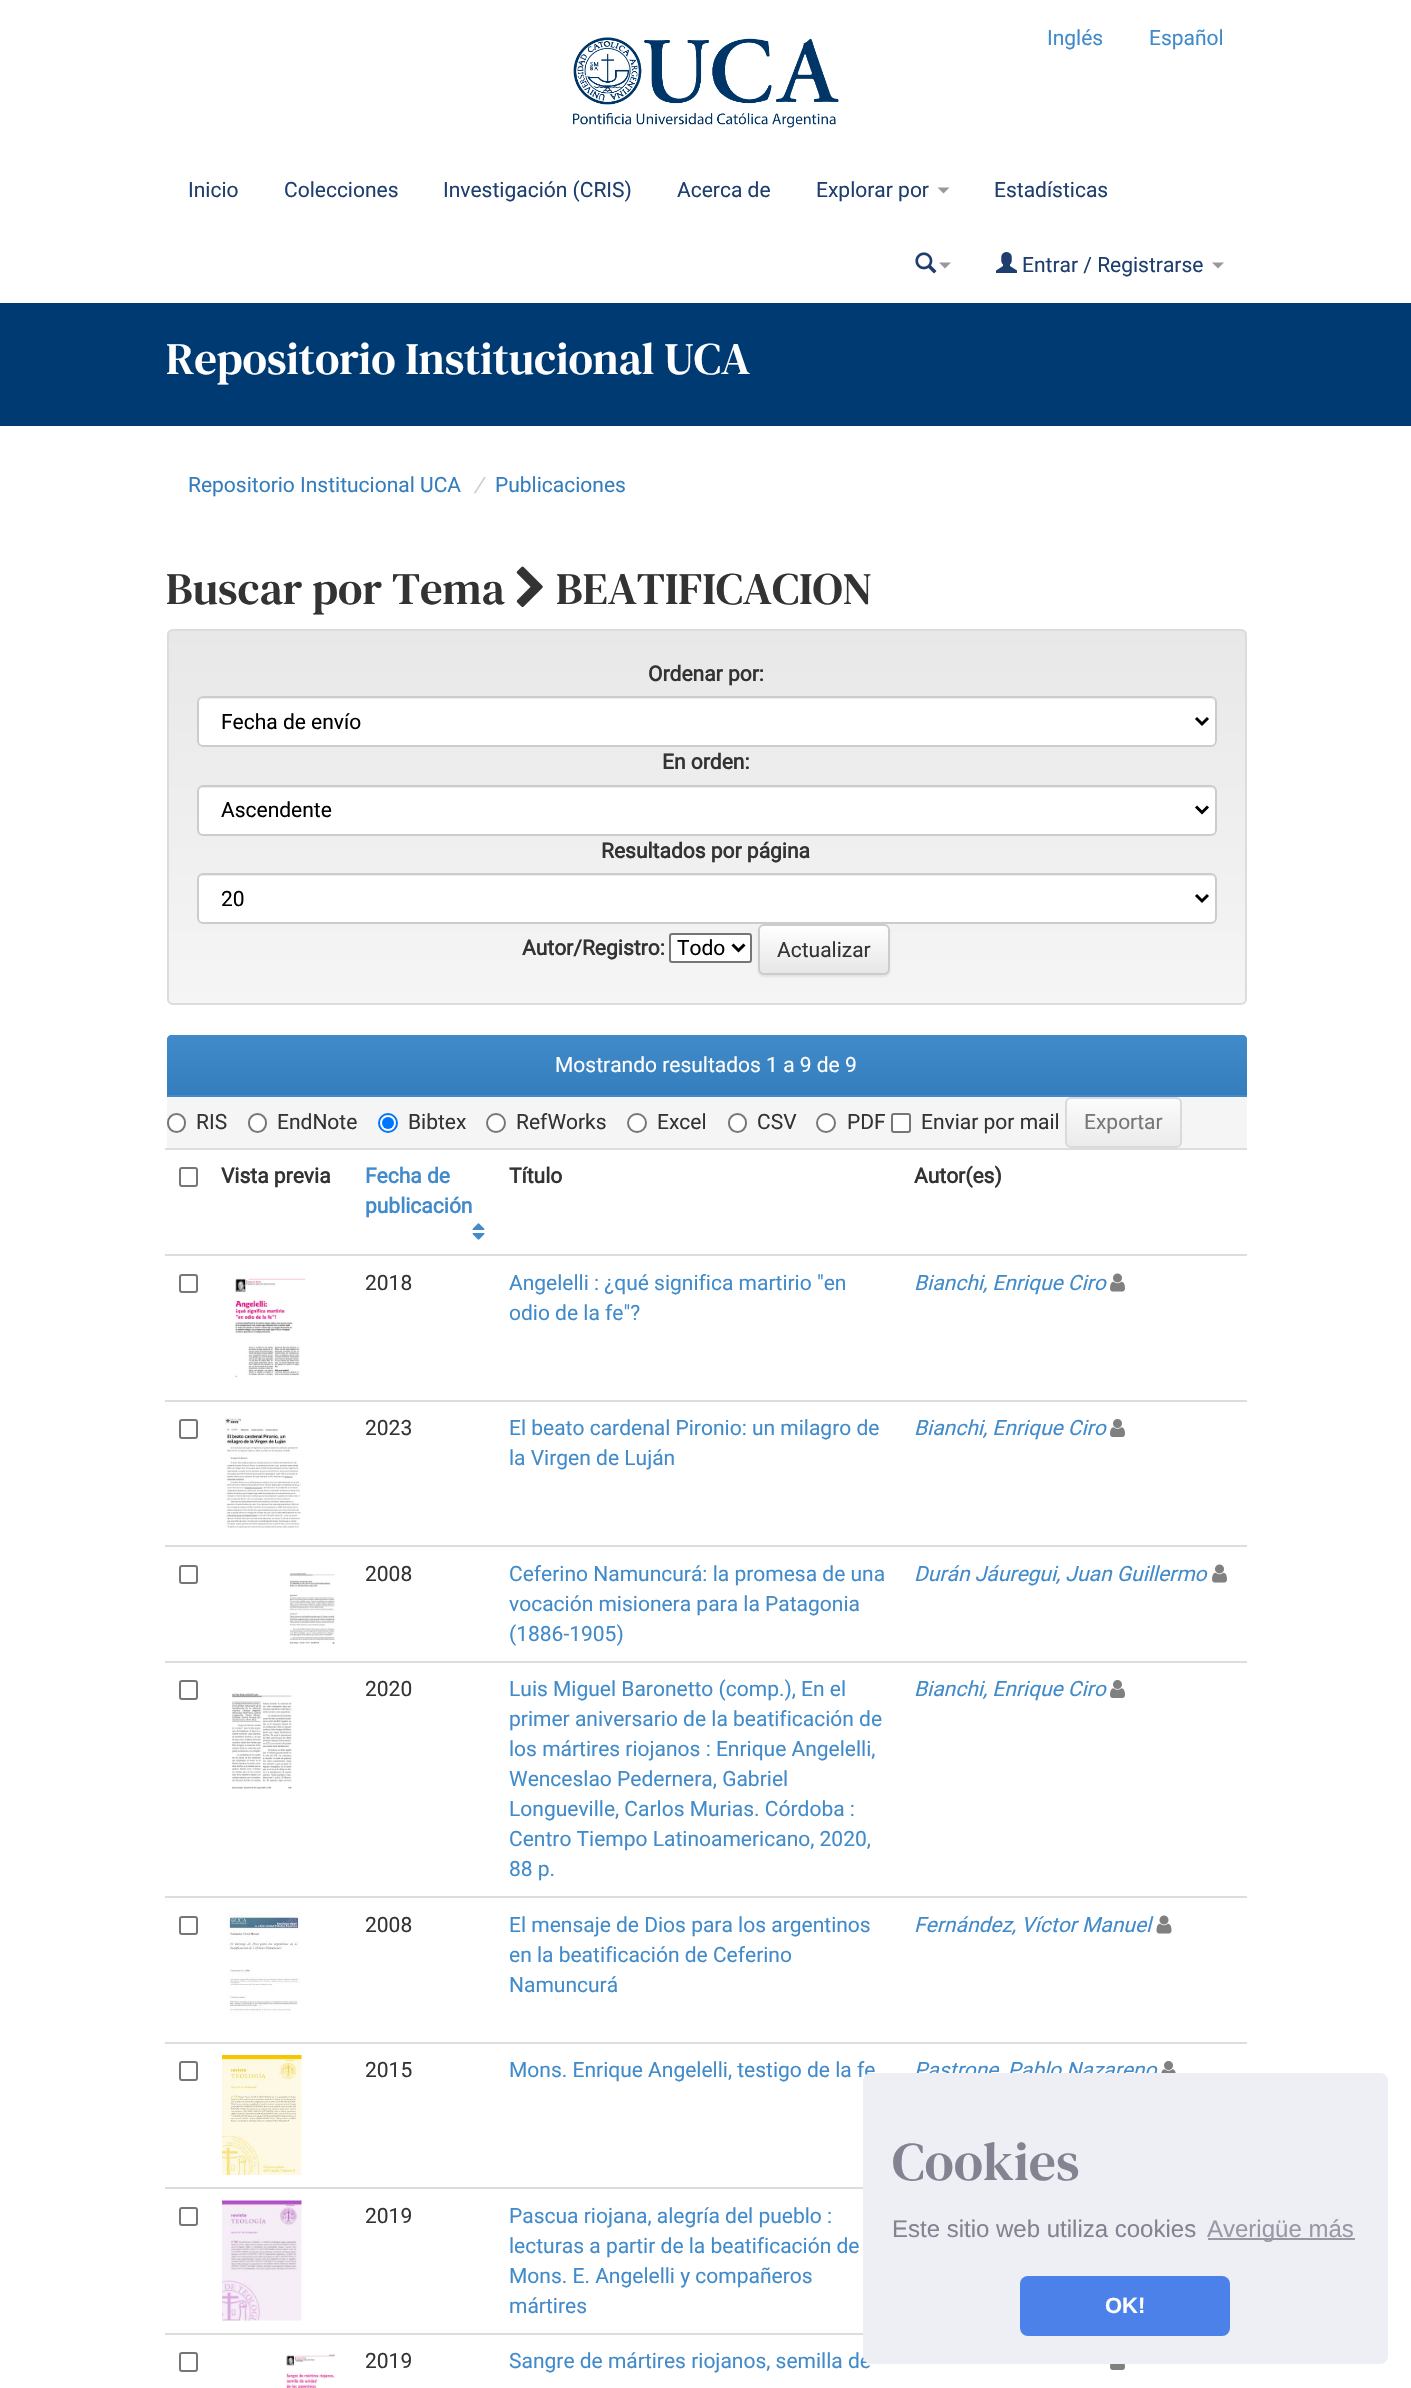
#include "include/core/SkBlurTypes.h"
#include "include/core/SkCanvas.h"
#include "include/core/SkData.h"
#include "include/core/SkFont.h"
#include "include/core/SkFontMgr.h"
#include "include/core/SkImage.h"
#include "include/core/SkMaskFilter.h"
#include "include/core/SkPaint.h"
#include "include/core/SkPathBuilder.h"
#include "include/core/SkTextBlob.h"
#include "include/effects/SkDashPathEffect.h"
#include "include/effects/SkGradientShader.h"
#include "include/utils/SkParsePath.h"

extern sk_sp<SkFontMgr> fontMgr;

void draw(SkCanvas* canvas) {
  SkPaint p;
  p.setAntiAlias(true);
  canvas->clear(SK_ColorWHITE);
  canvas->drawImageRect(SkImages::DeferredFromEncodedData(SkData::MakeFromFileName("images/1.png")), SkRect::MakeLTRB(573, 37, 839, 128), SkSamplingOptions());
  p.setColor(SkColorSetRGB(153, 153, 153));
  canvas->drawPath(SkPathBuilder().moveTo(937.5f, 187.5f).lineTo(949.5f, 187.5f).lineTo(943.5f, 193.5f).close().detach(), p);
  canvas->drawImageRect(SkImages::DeferredFromEncodedData(SkData::MakeFromFileName("images/2.png")), SkRect::MakeLTRB(915, 252, 937, 274), SkSamplingOptions());
  canvas->drawPath(SkPathBuilder().moveTo(939, 262.5f).lineTo(951, 262.5f).lineTo(945, 268.5f).close().detach(), p);
  canvas->drawImageRect(SkImages::DeferredFromEncodedData(SkData::MakeFromFileName("images/3.png")), SkRect::MakeLTRB(996, 252, 1017, 273), SkSamplingOptions());
  canvas->drawPath(SkPathBuilder().moveTo(1212, 262.5f).lineTo(1224, 262.5f).lineTo(1218, 268.5f).close().detach(), p);
  p.setColor(SkColorSetRGB(0, 58, 114));
  canvas->drawRect(SkRect::MakeLTRB(0, 303, 1411, 426), p);
  canvas->drawImageRect(SkImages::DeferredFromEncodedData(SkData::MakeFromFileName("images/4.png")), SkRect::MakeLTRB(516, 566, 543, 607), SkSamplingOptions());
  canvas->save();
  canvas->clipPath(SkPathBuilder().moveTo(173, 629).lineTo(1241, 629).cubicTo(1244.5f, 629, 1247, 631.5f, 1247, 635).lineTo(1247, 999).cubicTo(1247, 1002.5f, 1244.5f, 1005, 1241, 1005).lineTo(173, 1005).cubicTo(169.5f, 1005, 167, 1002.5f, 167, 999).lineTo(167, 635).cubicTo(167, 631.5f, 169.5f, 629, 173, 629).close().detach(), true);
  {
    const SkColor colors[] = {SkColorSetRGB(232, 232, 232), SkColorSetRGB(245, 245, 245)};
    const float stops[] = {0, 1};
    const SkPoint ends[] = {{707, 630}, {707, 1004}};
    p.setShader(SkGradientShader::MakeLinear(ends, colors, stops, 2, SkTileMode::kClamp));
    p.setAlpha(255);
  }
  canvas->drawRect(SkRect::MakeLTRB(167, 630, 1247, 1004), p);
  canvas->restore();
  p.setStyle(SkPaint::kStroke_Style);
  p.setStrokeWidth(2);
  p.setShader(nullptr);
  p.setColor(SkColorSetRGB(220, 220, 220));
  canvas->drawRoundRect(SkRect::MakeLTRB(168, 630, 1246, 1004), 5, 5, p);
  p.setStyle(SkPaint::kFill_Style);
  p.setColor(SK_ColorWHITE);
  canvas->drawRoundRect(SkRect::MakeLTRB(197, 696, 1217, 747), 6, 6, p);
  p.setColor(SkColorSetRGB(236, 236, 236));
  canvas->drawPath(SkPathBuilder().moveTo(202, 699).lineTo(1210, 699).cubicTo(1213, 699, 1215, 701, 1215, 704).cubicTo(1215, 701, 1213, 698, 1210, 698).lineTo(203, 698).cubicTo(200, 698, 198, 701, 198, 704).cubicTo(198, 701, 200, 699, 202, 699).close().detach(), p);
  p.setStyle(SkPaint::kStroke_Style);
  p.setColor(SkColorSetRGB(204, 204, 204));
  canvas->drawRoundRect(SkRect::MakeLTRB(198, 697, 1216, 746), 5, 5, p);
  p.setStrokeWidth(3);
  p.setColor(SK_ColorBLACK);
  canvas->drawPath(SkPathBuilder().moveTo(1196, 718).lineTo(1202, 724).lineTo(1208, 718).detach(), p);
  p.setStyle(SkPaint::kFill_Style);
  p.setColor(SK_ColorWHITE);
  canvas->drawRoundRect(SkRect::MakeLTRB(197, 785, 1217, 836), 6, 6, p);
  p.setColor(SkColorSetRGB(236, 236, 236));
  canvas->drawPath(SkPathBuilder().moveTo(202, 788).lineTo(1210, 788).cubicTo(1213, 788, 1215, 790, 1215, 792).cubicTo(1215, 789, 1213, 786, 1210, 786).lineTo(203, 786).cubicTo(200, 786, 198, 789, 198, 792).cubicTo(198, 790, 200, 788, 202, 788).close().detach(), p);
  p.setStyle(SkPaint::kStroke_Style);
  p.setStrokeWidth(2);
  p.setColor(SkColorSetRGB(204, 204, 204));
  canvas->drawRoundRect(SkRect::MakeLTRB(198, 786, 1216, 835), 5, 5, p);
  p.setStrokeWidth(3);
  p.setColor(SK_ColorBLACK);
  canvas->drawPath(SkPathBuilder().moveTo(1196, 806.5f).lineTo(1202, 812.5f).lineTo(1208, 806.5f).detach(), p);
  p.setStyle(SkPaint::kFill_Style);
  p.setColor(SK_ColorWHITE);
  canvas->drawRoundRect(SkRect::MakeLTRB(197, 873, 1217, 924), 6, 6, p);
  p.setColor(SkColorSetRGB(236, 236, 236));
  canvas->drawPath(SkPathBuilder().moveTo(202, 876).lineTo(1210, 876).cubicTo(1213, 876, 1215, 878, 1215, 880).cubicTo(1215, 877, 1213, 875, 1210, 875).lineTo(203, 875).cubicTo(200, 875, 198, 877, 198, 880).cubicTo(198, 878, 200, 876, 202, 876).close().detach(), p);
  p.setStyle(SkPaint::kStroke_Style);
  p.setStrokeWidth(2);
  p.setColor(SkColorSetRGB(204, 204, 204));
  canvas->drawRoundRect(SkRect::MakeLTRB(198, 874, 1216, 923), 5, 5, p);
  p.setStrokeWidth(3);
  p.setColor(SK_ColorBLACK);
  canvas->drawPath(SkPathBuilder().moveTo(1196, 895).lineTo(1202, 901).lineTo(1208, 895).detach(), p);
  p.setStyle(SkPaint::kFill_Style);
  p.setColor(SK_ColorWHITE);
  canvas->drawRoundRect(SkRect::MakeLTRB(670, 934, 751, 962), 2, 2, p);
  p.setStyle(SkPaint::kStroke_Style);
  p.setStrokeWidth(2);
  p.setColor(SkColorSetRGB(118, 118, 118));
  canvas->drawRoundRect(SkRect::MakeLTRB(670, 934, 751, 962), 2, 2, p);
  p.setStrokeWidth(3);
  p.setColor(SK_ColorBLACK);
  canvas->drawPath(SkPathBuilder().moveTo(732.5f, 944.5f).lineTo(738.5f, 950.5f).lineTo(744.5f, 944.5f).detach(), p);
  p.setStyle(SkPaint::kFill_Style);
  p.setColor(SkColorSetARGB(18, 0, 0, 0));
  p.setMaskFilter(SkMaskFilter::MakeBlur(kNormal_SkBlurStyle, 1));
  canvas->drawRoundRect(SkRect::MakeLTRB(758, 926, 890, 977), 6, 6, p);
  p.setMaskFilter(nullptr);
  canvas->save();
  canvas->clipPath(SkPathBuilder().moveTo(764, 924).lineTo(884, 924).cubicTo(887.5f, 924, 890, 926.5f, 890, 930).lineTo(890, 969).cubicTo(890, 972.5f, 887.5f, 975, 884, 975).lineTo(764, 975).cubicTo(760.5f, 975, 758, 972.5f, 758, 969).lineTo(758, 930).cubicTo(758, 926.5f, 760.5f, 924, 764, 924).close().detach(), true);
  {
    const SkColor colors[] = {SK_ColorWHITE, SkColorSetRGB(230, 230, 230)};
    const float stops[] = {0, 1};
    const SkPoint ends[] = {{824, 926}, {824, 974}};
    p.setShader(SkGradientShader::MakeLinear(ends, colors, stops, 2, SkTileMode::kClamp));
    p.setAlpha(255);
  }
  canvas->drawRect(SkRect::MakeLTRB(758, 926, 890, 974), p);
  canvas->restore();
  p.setStyle(SkPaint::kStroke_Style);
  p.setStrokeWidth(2);
  p.setShader(nullptr);
  p.setColor(SkColorSetRGB(204, 204, 204));
  canvas->drawRoundRect(SkRect::MakeLTRB(759, 925, 889, 974), 5, 5, p);
  p.setStyle(SkPaint::kFill_Style);
  p.setColor(SkColorSetRGB(66, 139, 202));
  canvas->drawPath(SkPathBuilder().moveTo(172, 1035).lineTo(1242, 1035).cubicTo(1245, 1035, 1247, 1037, 1247, 1040).lineTo(1247, 1097).lineTo(167, 1097).lineTo(167, 1040).cubicTo(167, 1037, 169, 1035, 172, 1035).close().detach(), p);
  {
    const SkColor colors[] = {SkColorSetRGB(66, 139, 202), SkColorSetRGB(53, 126, 189)};
    const float stops[] = {0, 1};
    const SkPoint ends[] = {{707, 1035}, {707, 1095}};
    p.setShader(SkGradientShader::MakeLinear(ends, colors, stops, 2, SkTileMode::kClamp));
    p.setAlpha(255);
  }
  canvas->drawPath(SkPathBuilder().moveTo(172, 1035).lineTo(1242, 1035).cubicTo(1245, 1035, 1247, 1037, 1247, 1040).lineTo(1247, 1095).lineTo(167, 1095).lineTo(167, 1040).cubicTo(167, 1037, 169, 1035, 172, 1035).close().detach(), p);
  p.setShader(nullptr);
  p.setColor(SkColorSetRGB(245, 245, 245));
  canvas->drawRect(SkRect::MakeLTRB(167, 1097, 1247, 1148), p);
  p.setColor(SK_ColorWHITE);
  canvas->drawRoundRect(SkRect::MakeLTRB(168, 1114, 185, 1132), 8.5f, 8.5f, p);
  p.setStyle(SkPaint::kStroke_Style);
  p.setColor(SkColorSetRGB(118, 118, 118));
  canvas->drawRoundRect(SkRect::MakeLTRB(168, 1114, 185, 1132), 8.5f, 8.5f, p);
  p.setStyle(SkPaint::kFill_Style);
  p.setColor(SK_ColorWHITE);
  canvas->drawRoundRect(SkRect::MakeLTRB(249, 1114, 266, 1132), 8.5f, 8.5f, p);
  p.setStyle(SkPaint::kStroke_Style);
  p.setColor(SkColorSetRGB(118, 118, 118));
  canvas->drawRoundRect(SkRect::MakeLTRB(249, 1114, 266, 1132), 8.5f, 8.5f, p);
  p.setStyle(SkPaint::kFill_Style);
  p.setColor(SK_ColorWHITE);
  canvas->drawCircle(388, 1123, 9, p);
  p.setStyle(SkPaint::kStroke_Style);
  p.setColor(SkColorSetRGB(0, 117, 255));
  canvas->drawCircle(388, 1123, 9, p);
  p.setStyle(SkPaint::kFill_Style);
  canvas->drawCircle(388, 1123, 6, p);
  p.setColor(SK_ColorWHITE);
  canvas->drawCircle(496, 1123, 9, p);
  p.setStyle(SkPaint::kStroke_Style);
  p.setColor(SkColorSetRGB(118, 118, 118));
  canvas->drawCircle(496, 1123, 9, p);
  p.setStyle(SkPaint::kFill_Style);
  p.setColor(SK_ColorWHITE);
  canvas->drawCircle(637, 1123, 9, p);
  p.setStyle(SkPaint::kStroke_Style);
  p.setColor(SkColorSetRGB(118, 118, 118));
  canvas->drawCircle(637, 1123, 9, p);
  p.setStyle(SkPaint::kFill_Style);
  p.setColor(SK_ColorWHITE);
  canvas->drawRoundRect(SkRect::MakeLTRB(729, 1114, 746, 1132), 8.5f, 8.5f, p);
  p.setStyle(SkPaint::kStroke_Style);
  p.setColor(SkColorSetRGB(118, 118, 118));
  canvas->drawRoundRect(SkRect::MakeLTRB(729, 1114, 746, 1132), 8.5f, 8.5f, p);
  p.setStyle(SkPaint::kFill_Style);
  p.setColor(SK_ColorWHITE);
  canvas->drawCircle(826, 1123, 9, p);
  p.setStyle(SkPaint::kStroke_Style);
  p.setColor(SkColorSetRGB(118, 118, 118));
  canvas->drawCircle(826, 1123, 9, p);
  p.setStyle(SkPaint::kFill_Style);
  p.setColor(SK_ColorWHITE);
  canvas->drawRoundRect(SkRect::MakeLTRB(892, 1114, 910, 1132), 2, 2, p);
  p.setStyle(SkPaint::kStroke_Style);
  p.setColor(SkColorSetRGB(118, 118, 118));
  canvas->drawRoundRect(SkRect::MakeLTRB(892, 1114, 910, 1132), 2, 2, p);
  canvas->save();
  canvas->clipPath(SkPathBuilder().moveTo(1071, 1097).lineTo(1176, 1097).cubicTo(1179.5f, 1097, 1182, 1099.5f, 1182, 1103).lineTo(1182, 1142).cubicTo(1182, 1145.5f, 1179.5f, 1148, 1176, 1148).lineTo(1071, 1148).cubicTo(1067.5f, 1148, 1065, 1145.5f, 1065, 1142).lineTo(1065, 1103).cubicTo(1065, 1099.5f, 1067.5f, 1097, 1071, 1097).close().detach(), true);
  p.setStyle(SkPaint::kFill_Style);
  {
    const SkColor colors[] = {SkColorSetRGB(252, 252, 252), SkColorSetRGB(235, 235, 235)};
    const float stops[] = {0, 1};
    const SkPoint ends[] = {{1124, 1098}, {1124, 1146}};
    p.setShader(SkGradientShader::MakeLinear(ends, colors, stops, 2, SkTileMode::kClamp));
    p.setAlpha(255);
  }
  canvas->drawRect(SkRect::MakeLTRB(1065, 1098, 1182, 1146), p);
  canvas->restore();
  p.setStyle(SkPaint::kStroke_Style);
  p.setShader(nullptr);
  p.setColor(SkColorSetRGB(218, 218, 218));
  canvas->drawRoundRect(SkRect::MakeLTRB(1066, 1098, 1181, 1147), 5, 5, p);
  p.setColor(SkColorSetRGB(118, 118, 118));
  canvas->drawRoundRect(SkRect::MakeLTRB(180, 1168, 197, 1186), 2, 2, p);
  canvas->drawImageRect(SkImages::DeferredFromEncodedData(SkData::MakeFromFileName("images/5.png")), SkRect::MakeLTRB(472, 1223, 485, 1240), SkSamplingOptions());
  p.setStyle(SkPaint::kFill_Style);
  p.setColor(SkColorSetRGB(221, 221, 221));
  canvas->drawRect(SkRect::MakeLTRB(165, 1148, 1247, 1150), p);
  p.setStyle(SkPaint::kStroke_Style);
  p.setColor(SkColorSetRGB(118, 118, 118));
  canvas->drawRoundRect(SkRect::MakeLTRB(180, 1275, 197, 1292), 2, 2, p);
  canvas->drawImageRect(SkImages::DeferredFromEncodedData(SkData::MakeFromFileName("images/6.png")), SkRect::MakeLTRB(235, 1278, 306, 1378), SkSamplingOptions());
  p.setStyle(SkPaint::kFill_Style);
  p.setColor(SkColorSetRGB(221, 221, 221));
  canvas->drawRect(SkRect::MakeLTRB(165, 1254, 1247, 1256), p);
  canvas->drawImageRect(SkImages::DeferredFromEncodedData(SkData::MakeFromFileName("images/7.png")), SkRect::MakeLTRB(1110, 1273, 1125, 1292), SkSamplingOptions());
  p.setStyle(SkPaint::kStroke_Style);
  p.setColor(SkColorSetRGB(118, 118, 118));
  canvas->drawRoundRect(SkRect::MakeLTRB(180, 1420, 197, 1438), 2, 2, p);
  canvas->drawImageRect(SkImages::DeferredFromEncodedData(SkData::MakeFromFileName("images/8.png")), SkRect::MakeLTRB(225, 1418, 301, 1528), SkSamplingOptions());
  p.setStyle(SkPaint::kFill_Style);
  p.setColor(SkColorSetRGB(221, 221, 221));
  canvas->drawRect(SkRect::MakeLTRB(165, 1400, 1247, 1402), p);
  canvas->drawImageRect(SkImages::DeferredFromEncodedData(SkData::MakeFromFileName("images/9.png")), SkRect::MakeLTRB(1110, 1419, 1125, 1437), SkSamplingOptions());
  p.setStyle(SkPaint::kStroke_Style);
  p.setColor(SkColorSetRGB(118, 118, 118));
  canvas->drawRoundRect(SkRect::MakeLTRB(180, 1566, 197, 1583), 2, 2, p);
  canvas->drawImageRect(SkImages::DeferredFromEncodedData(SkData::MakeFromFileName("images/10.png")), SkRect::MakeLTRB(289, 1573, 335, 1644), SkSamplingOptions());
  p.setStyle(SkPaint::kFill_Style);
  p.setColor(SkColorSetRGB(221, 221, 221));
  canvas->drawRect(SkRect::MakeLTRB(165, 1545, 1247, 1547), p);
  canvas->drawImageRect(SkImages::DeferredFromEncodedData(SkData::MakeFromFileName("images/7.png")), SkRect::MakeLTRB(1212, 1564, 1227, 1583), SkSamplingOptions());
  p.setStyle(SkPaint::kStroke_Style);
  p.setColor(SkColorSetRGB(118, 118, 118));
  canvas->drawRoundRect(SkRect::MakeLTRB(180, 1681, 197, 1699), 2, 2, p);
  p.setStyle(SkPaint::kFill_Style);
  p.setColor(SkColorSetRGB(221, 221, 221));
  canvas->drawRect(SkRect::MakeLTRB(165, 1661, 1247, 1663), p);
  canvas->drawImageRect(SkImages::DeferredFromEncodedData(SkData::MakeFromFileName("images/9.png")), SkRect::MakeLTRB(1110, 1680, 1125, 1698), SkSamplingOptions());
  canvas->drawImageRect(SkImages::DeferredFromEncodedData(SkData::MakeFromFileName("images/11.png")), SkRect::MakeLTRB(232, 1693, 292, 1789), SkSamplingOptions());
  p.setStyle(SkPaint::kStroke_Style);
  p.setColor(SkColorSetRGB(118, 118, 118));
  canvas->drawRoundRect(SkRect::MakeLTRB(180, 1917, 197, 1934), 2, 2, p);
  canvas->drawImageRect(SkImages::DeferredFromEncodedData(SkData::MakeFromFileName("images/12.png")), SkRect::MakeLTRB(222, 1909, 301, 2014), SkSamplingOptions());
  p.setStyle(SkPaint::kFill_Style);
  p.setColor(SkColorSetRGB(221, 221, 221));
  canvas->drawRect(SkRect::MakeLTRB(165, 1896, 1247, 1898), p);
  canvas->drawImageRect(SkImages::DeferredFromEncodedData(SkData::MakeFromFileName("images/13.png")), SkRect::MakeLTRB(1156, 1915, 1172, 1934), SkSamplingOptions());
  p.setStyle(SkPaint::kStroke_Style);
  p.setColor(SkColorSetRGB(118, 118, 118));
  canvas->drawRoundRect(SkRect::MakeLTRB(180, 2062, 197, 2080), 2, 2, p);
  canvas->drawImageRect(SkImages::DeferredFromEncodedData(SkData::MakeFromFileName("images/14.png")), SkRect::MakeLTRB(222, 2055, 302, 2175), SkSamplingOptions());
  p.setStyle(SkPaint::kFill_Style);
  p.setColor(SkColorSetRGB(221, 221, 221));
  canvas->drawRect(SkRect::MakeLTRB(165, 2042, 1247, 2044), p);
  canvas->drawImageRect(SkImages::DeferredFromEncodedData(SkData::MakeFromFileName("images/15.png")), SkRect::MakeLTRB(1161, 2061, 1176, 2073), SkSamplingOptions());
  p.setStyle(SkPaint::kStroke_Style);
  p.setColor(SkColorSetRGB(118, 118, 118));
  canvas->drawRoundRect(SkRect::MakeLTRB(180, 2208, 197, 2225), 2, 2, p);
  canvas->drawImageRect(SkImages::DeferredFromEncodedData(SkData::MakeFromFileName("images/16.png")), SkRect::MakeLTRB(222, 2200, 302, 2321), SkSamplingOptions());
  p.setStyle(SkPaint::kFill_Style);
  p.setColor(SkColorSetRGB(221, 221, 221));
  canvas->drawRect(SkRect::MakeLTRB(165, 2187, 863, 2189), p);
  p.setStyle(SkPaint::kStroke_Style);
  p.setColor(SkColorSetRGB(118, 118, 118));
  canvas->drawRoundRect(SkRect::MakeLTRB(180, 2353, 197, 2371), 2, 2, p);
  canvas->drawImageRect(SkImages::DeferredFromEncodedData(SkData::MakeFromFileName("images/17.png")), SkRect::MakeLTRB(286, 2354, 335, 2388), SkSamplingOptions());
  p.setStyle(SkPaint::kFill_Style);
  p.setColor(SkColorSetRGB(221, 221, 221));
  canvas->drawRect(SkRect::MakeLTRB(165, 2333, 863, 2335), p);
  canvas->drawImageRect(SkImages::DeferredFromEncodedData(SkData::MakeFromFileName("images/18.png")), SkRect::MakeLTRB(1110, 2364, 1125, 2370), SkSamplingOptions());
  SkFont font1(fontMgr->matchFamilyStyle("Roboto", SkFontStyle::Normal()), 21);
  font1.setSubpixel(true);
  p.setColor(SkColorSetRGB(66, 139, 202));
  canvas->drawString("Inglés", 1047, 45, font1, p);
  canvas->drawString("Español", 1149, 45, font1, p);
  p.setColor(SkColorSetRGB(30, 62, 111));
  canvas->drawString("Inicio", 188, 197, font1, p);
  canvas->drawString("Colecciones", 284, 197, font1, p);
  canvas->drawString("Investigación (CRIS)", 443, 197, font1, p);
  canvas->drawString("Acerca de", 677, 197, font1, p);
  canvas->drawString("Explorar por", 816, 197, font1, p);
  canvas->drawString("Estadísticas", 994, 197, font1, p);
  canvas->drawString("Entrar / Registrarse", 1022, 272, font1, p);
  SkFont font2(fontMgr->matchFamilyStyle("DM Serif Text", SkFontStyle::Normal()), 45);
  font2.setSubpixel(true);
  p.setColor(SK_ColorWHITE);
  canvas->drawString("Repositorio Institucional UCA", 166, 374, font2, p);
  p.setColor(SkColorSetRGB(53, 126, 189));
  canvas->drawString("Repositorio Institucional UCA", 188, 492, font1, p);
  SkFont font3(fontMgr->matchFamilyStyle("Roboto", SkFontStyle::Italic()), 21);
  font3.setSubpixel(true);
  p.setColor(SkColorSetRGB(204, 204, 204));
  canvas->drawString("/", 474, 492, font3, p);
  p.setColor(SkColorSetRGB(53, 126, 189));
  canvas->drawString("Publicaciones", 495, 492, font1, p);
  p.setColor(SkColorSetRGB(51, 51, 51));
  canvas->drawString("Buscar por Tema", 166, 604, font2, p);
  canvas->drawString("BEATIFICACION", 556, 604, font2, p);
  SkFont font4(fontMgr->matchFamilyStyle("Roboto", SkFontStyle::Bold()), 21);
  font4.setSubpixel(true);
  canvas->drawString("Ordenar por:", 648, 681, font4, p);
  p.setColor(SK_ColorBLACK);
  canvas->drawString("Fecha de envío", 221, 729, font1, p);
  p.setColor(SkColorSetRGB(51, 51, 51));
  canvas->drawString("En orden:", 662, 769, font4, p);
  p.setColor(SK_ColorBLACK);
  canvas->drawString("Ascendente", 221, 817, font1, p);
  p.setColor(SkColorSetRGB(51, 51, 51));
  canvas->drawString("Resultados por página", 601, 858, font4, p);
  p.setColor(SK_ColorBLACK);
  canvas->drawString("20", 221, 906, font1, p);
  p.setColor(SkColorSetRGB(51, 51, 51));
  canvas->drawString("Autor/Registro:", 522, 955, font4, p);
  p.setColor(SK_ColorBLACK);
  canvas->drawString("Todo", 677, 955, font1, p);
  p.setColor(SkColorSetRGB(51, 51, 51));
  canvas->drawString("Actualizar", 777, 957, font1, p);
  p.setColor(SK_ColorWHITE);
  canvas->drawString("Mostrando resultados 1 a 9 de 9", 555, 1072, font1, p);
  p.setColor(SkColorSetRGB(51, 51, 51));
  canvas->drawString("RIS", 196, 1129, font1, p);
  canvas->drawString("EndNote", 277, 1129, font1, p);
  canvas->drawString("Bibtex", 408, 1129, font1, p);
  canvas->drawString("RefWorks", 516, 1129, font1, p);
  canvas->drawString("Excel", 657, 1129, font1, p);
  canvas->drawString("CSV", 757, 1129, font1, p);
  canvas->drawString("PDF", 847, 1129, font1, p);
  canvas->drawString("Enviar por mail", 921, 1129, font1, p);
  p.setColor(SkColorSetRGB(119, 119, 119));
  canvas->drawString("Exportar", 1084, 1129, font1, p);
  p.setColor(SkColorSetRGB(51, 51, 51));
  canvas->drawString("Vista previa", 221, 1183, font4, p);
  p.setColor(SkColorSetRGB(66, 139, 202));
  canvas->drawString("Fecha de", 365, 1183, font4, p);
  canvas->drawString("publicación", 365, 1213, font4, p);
  p.setColor(SkColorSetRGB(51, 51, 51));
  canvas->drawString("Título", 509, 1183, font4, p);
  canvas->drawString("Autor(es)", 914, 1183, font4, p);
  canvas->drawString("2018", 365, 1290, font1, p);
  p.setColor(SkColorSetRGB(66, 139, 202));
  canvas->drawString("Angelelli : ¿qué significa martirio \"en", 509, 1290, font1, p);
  canvas->drawString("odio de la fe\"?", 509, 1320, font1, p);
  canvas->drawString("Bianchi, Enrique Ciro", 914, 1290, font3, p);
  p.setColor(SkColorSetRGB(51, 51, 51));
  canvas->drawString("2023", 365, 1435, font1, p);
  p.setColor(SkColorSetRGB(66, 139, 202));
  canvas->drawString("El beato cardenal Pironio: un milagro de", 509, 1435, font1, p);
  canvas->drawString("la Virgen de Luján", 509, 1465, font1, p);
  canvas->drawString("Bianchi, Enrique Ciro", 914, 1435, font3, p);
  p.setColor(SkColorSetRGB(51, 51, 51));
  canvas->drawString("2008", 365, 1581, font1, p);
  p.setColor(SkColorSetRGB(66, 139, 202));
  canvas->drawString("Ceferino Namuncurá: la promesa de una", 509, 1581, font1, p);
  canvas->drawString("vocación misionera para la Patagonia", 509, 1611, font1, p);
  canvas->drawString("(1886-1905)", 509, 1641, font1, p);
  canvas->drawString("Durán Jáuregui, Juan Guillermo", 914, 1581, font3, p);
  p.setColor(SkColorSetRGB(51, 51, 51));
  canvas->drawString("2020", 365, 1696, font1, p);
  p.setColor(SkColorSetRGB(66, 139, 202));
  canvas->drawString("Luis Miguel Baronetto (comp.), En el", 509, 1696, font1, p);
  canvas->drawString("primer aniversario de la beatificación de", 509, 1726, font1, p);
  canvas->drawString("los mártires riojanos : Enrique Angelelli,", 509, 1756, font1, p);
  canvas->drawString("Wenceslao Pedernera, Gabriel", 509, 1786, font1, p);
  canvas->drawString("Longueville, Carlos Murias. Córdoba :", 509, 1816, font1, p);
  canvas->drawString("Centro Tiempo Latinoamericano, 2020,", 509, 1846, font1, p);
  canvas->drawString("88 p.", 509, 1876, font1, p);
  canvas->drawString("Bianchi, Enrique Ciro", 914, 1696, font3, p);
  p.setColor(SkColorSetRGB(51, 51, 51));
  canvas->drawString("2008", 365, 1932, font1, p);
  p.setColor(SkColorSetRGB(66, 139, 202));
  canvas->drawString("El mensaje de Dios para los argentinos", 509, 1932, font1, p);
  canvas->drawString("en la beatificación de Ceferino", 509, 1962, font1, p);
  canvas->drawString("Namuncurá", 509, 1992, font1, p);
  canvas->drawString("Fernández, Víctor Manuel", 914, 1932, font3, p);
  p.setColor(SkColorSetRGB(51, 51, 51));
  canvas->drawString("2015", 365, 2077, font1, p);
  p.setColor(SkColorSetRGB(66, 139, 202));
  canvas->drawString("Mons. Enrique Angelelli, testigo de la fe", 509, 2077, font1, p);
  canvas->drawString("Pastrone, Pablo Nazareno", 914, 2077, font3, p);
  p.setColor(SkColorSetRGB(51, 51, 51));
  canvas->drawString("2019", 365, 2223, font1, p);
  p.setColor(SkColorSetRGB(66, 139, 202));
  canvas->drawString("Pascua riojana, alegría del pueblo :", 509, 2223, font1, p);
  canvas->drawString("lecturas a partir de la beatificación de", 509, 2253, font1, p);
  canvas->drawString("Mons. E. Angelelli y compañeros", 509, 2283, font1, p);
  canvas->drawString("mártires", 509, 2313, font1, p);
  p.setColor(SkColorSetRGB(51, 51, 51));
  canvas->drawString("2019", 365, 2368, font1, p);
  p.setColor(SkColorSetRGB(66, 139, 202));
  canvas->drawString("Sangre de mártires riojanos, semilla de", 509, 2368, font1, p);
  p.setColor(SkColorSetRGB(237, 239, 245));
  canvas->drawRoundRect(SkRect::MakeLTRB(863, 2073, 1388, 2364), 8, 8, p);
  SkFont font5(fontMgr->matchFamilyStyle("DM Serif Text", SkFontStyle::Normal()), 54);
  font5.setSubpixel(true);
  p.setColor(SkColorSetRGB(131, 131, 145));
  canvas->drawString("Cookies", 892, 2180, font5, p);
  SkFont font6(fontMgr->matchFamilyStyle("Liberation Sans", SkFontStyle::Normal()), 24);
  font6.setSubpixel(true);
  canvas->drawString("Este sitio web utiliza cookies", 892, 2237, font6, p);
  p.setColor(SkColorSetRGB(152, 153, 165));
  canvas->drawRect(SkRect::MakeLTRB(1208, 2238, 1355, 2240), p);
  canvas->drawString("Averigüe más", 1207, 2237, font6, p);
  p.setColor(SkColorSetRGB(75, 129, 232));
  canvas->drawRoundRect(SkRect::MakeLTRB(1020, 2276, 1230, 2336), 8, 8, p);
  SkFont font7(fontMgr->matchFamilyStyle("Liberation Sans", SkFontStyle::Bold()), 22);
  font7.setSubpixel(true);
  p.setColor(SK_ColorWHITE);
  canvas->drawString("OK!", 1105, 2313, font7, p);
}
